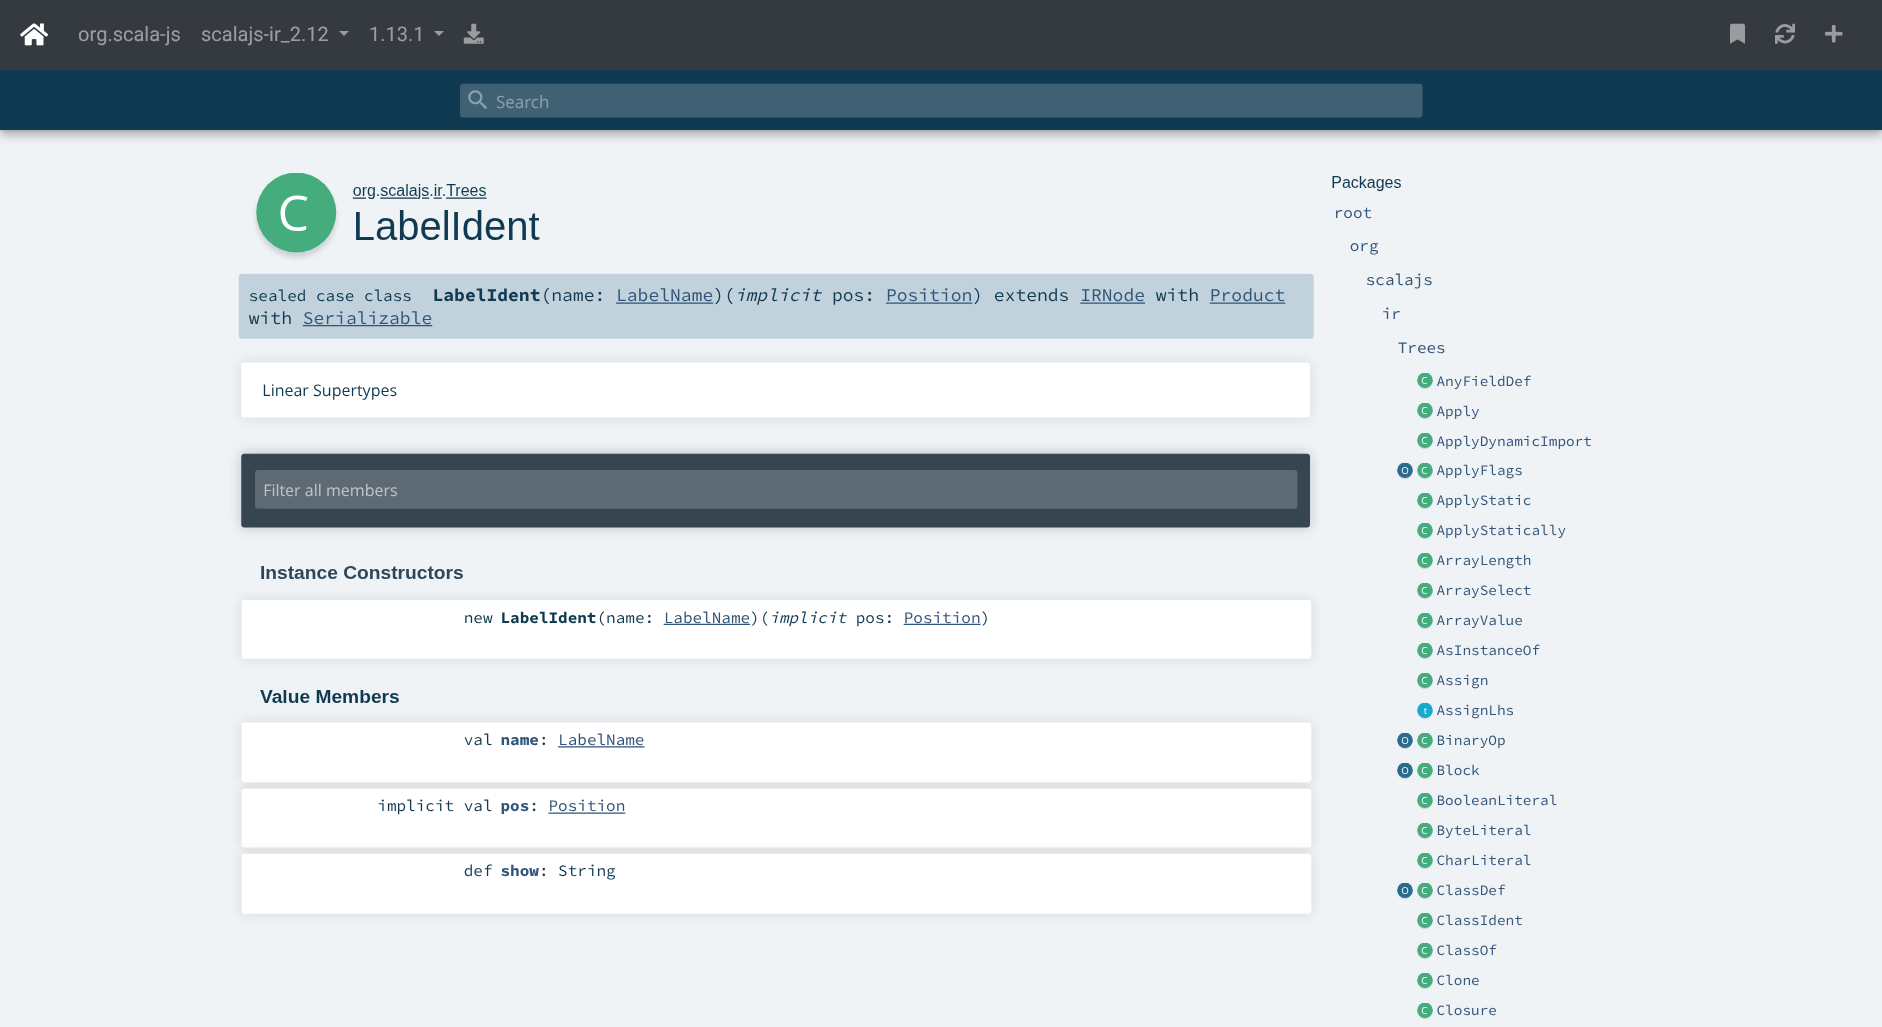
#include "include/core/SkBlurTypes.h"
#include "include/core/SkCanvas.h"
#include "include/core/SkData.h"
#include "include/core/SkFont.h"
#include "include/core/SkFontMgr.h"
#include "include/core/SkImage.h"
#include "include/core/SkMaskFilter.h"
#include "include/core/SkPaint.h"
#include "include/core/SkPathBuilder.h"
#include "include/core/SkTextBlob.h"
#include "include/effects/SkDashPathEffect.h"
#include "include/effects/SkGradientShader.h"
#include "include/utils/SkParsePath.h"

extern sk_sp<SkFontMgr> fontMgr;

void draw(SkCanvas* canvas) {
  SkPaint p;
  p.setAntiAlias(true);
  canvas->clear(SK_ColorWHITE);
  p.setColor(SkColorSetRGB(52, 58, 64));
  canvas->drawRect(SkRect::MakeLTRB(0, 0, 1882, 70), p);
  canvas->drawImageRect(SkImages::DeferredFromEncodedData(SkData::MakeFromFileName("images/1.png")), SkRect::MakeLTRB(20, 23, 49, 46), SkSamplingOptions());
  p.setColor(SkColorSetRGB(154, 157, 160));
  canvas->drawPath(SkPathBuilder().moveTo(339, 31).lineTo(349, 31).lineTo(344, 36).close().detach(), p);
  canvas->drawPath(SkPathBuilder().moveTo(434, 31).lineTo(444, 31).lineTo(439, 36).close().detach(), p);
  canvas->drawImageRect(SkImages::DeferredFromEncodedData(SkData::MakeFromFileName("images/2.png")), SkRect::MakeLTRB(463, 23, 484, 44), SkSamplingOptions());
  canvas->drawImageRect(SkImages::DeferredFromEncodedData(SkData::MakeFromFileName("images/3.png")), SkRect::MakeLTRB(1730, 23, 1745, 44), SkSamplingOptions());
  canvas->drawImageRect(SkImages::DeferredFromEncodedData(SkData::MakeFromFileName("images/4.png")), SkRect::MakeLTRB(1775, 23, 1795, 44), SkSamplingOptions());
  canvas->drawImageRect(SkImages::DeferredFromEncodedData(SkData::MakeFromFileName("images/5.png")), SkRect::MakeLTRB(1825, 25, 1843, 43), SkSamplingOptions());
  canvas->drawImageRect(SkImages::DeferredFromEncodedData(SkData::MakeFromFileName("images/6.png")), SkRect::MakeLTRB(0, 70, 1882, 1027), SkSamplingOptions());
  SkFont font1(fontMgr->matchFamilyStyle("Roboto", SkFontStyle::Normal()), 20);
  font1.setSubpixel(true);
  canvas->drawString("org.scala-js", 78, 41, font1, p);
  canvas->drawString("scalajs-ir_2.12", 201, 41, font1, p);
  canvas->drawString("1.13.1", 369, 41, font1, p);
}
